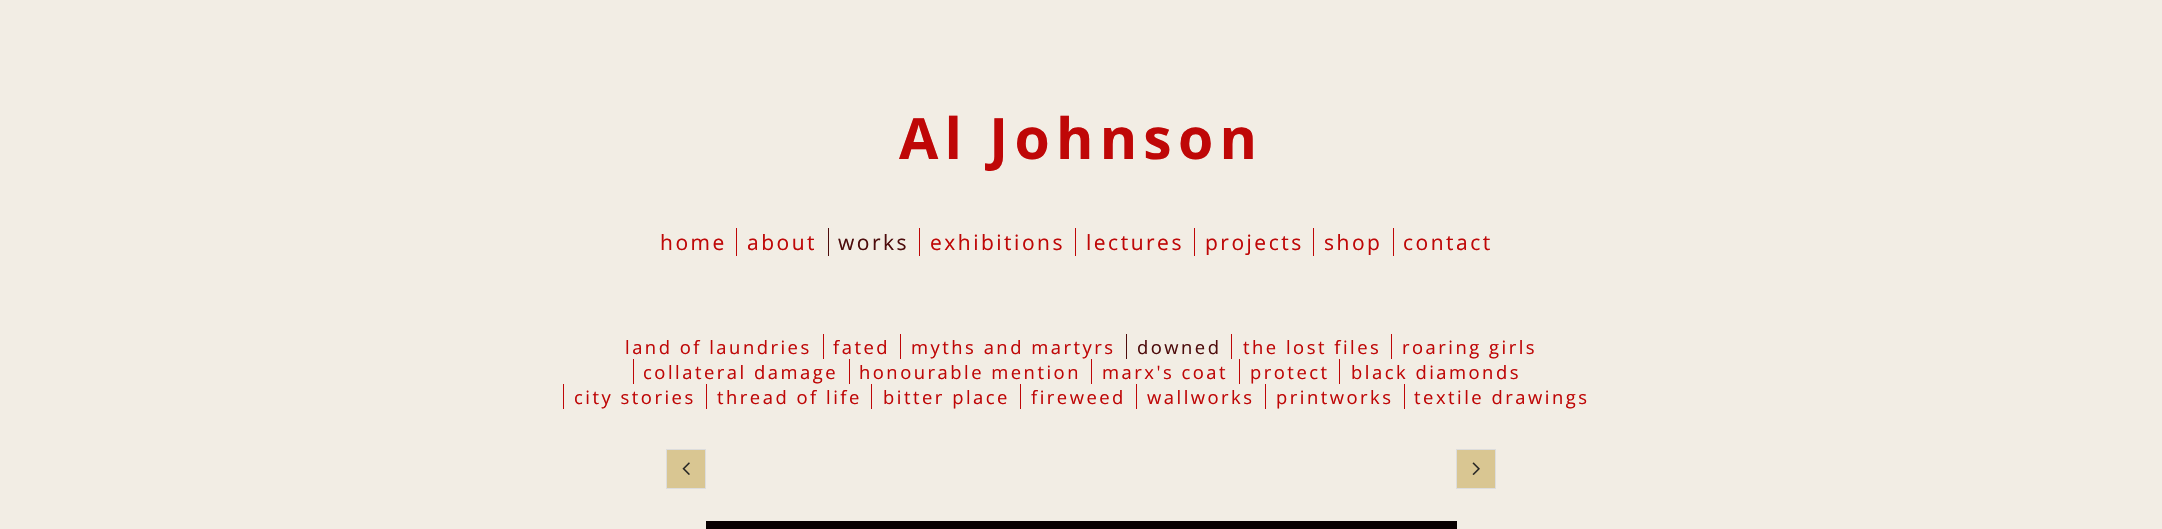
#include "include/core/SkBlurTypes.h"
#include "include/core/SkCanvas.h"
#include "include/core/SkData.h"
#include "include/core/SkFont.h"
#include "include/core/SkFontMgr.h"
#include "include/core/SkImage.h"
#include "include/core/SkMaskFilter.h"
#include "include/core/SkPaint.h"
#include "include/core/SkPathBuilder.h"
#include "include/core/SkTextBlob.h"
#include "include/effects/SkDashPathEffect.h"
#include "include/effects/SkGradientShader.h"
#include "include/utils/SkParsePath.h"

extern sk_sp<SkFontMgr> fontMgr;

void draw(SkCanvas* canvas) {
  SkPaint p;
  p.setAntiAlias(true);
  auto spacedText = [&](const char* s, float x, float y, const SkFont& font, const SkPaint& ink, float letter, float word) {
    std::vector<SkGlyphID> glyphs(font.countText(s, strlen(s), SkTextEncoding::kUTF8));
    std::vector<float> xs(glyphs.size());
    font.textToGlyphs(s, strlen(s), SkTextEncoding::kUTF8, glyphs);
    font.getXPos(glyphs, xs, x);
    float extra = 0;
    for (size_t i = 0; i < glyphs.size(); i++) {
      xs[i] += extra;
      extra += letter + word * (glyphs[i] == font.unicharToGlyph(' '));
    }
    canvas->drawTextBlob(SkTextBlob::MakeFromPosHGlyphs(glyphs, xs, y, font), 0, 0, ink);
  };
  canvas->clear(SkColorSetRGB(242, 237, 228));
  p.setColor(SkColorSetRGB(191, 7, 7));
  canvas->drawRect(SkRect::MakeLTRB(736, 228, 737, 256), p);
  p.setColor(SkColorSetRGB(77, 12, 12));
  canvas->drawRect(SkRect::MakeLTRB(828, 228, 829, 256), p);
  p.setColor(SkColorSetRGB(191, 7, 7));
  canvas->drawRect(SkRect::MakeLTRB(919, 228, 920, 256), p);
  canvas->drawRect(SkRect::MakeLTRB(1075, 228, 1076, 256), p);
  canvas->drawRect(SkRect::MakeLTRB(1194, 228, 1195, 256), p);
  canvas->drawRect(SkRect::MakeLTRB(1313, 228, 1314, 256), p);
  canvas->drawRect(SkRect::MakeLTRB(1393, 228, 1394, 256), p);
  canvas->drawRect(SkRect::MakeLTRB(823, 334, 824, 359), p);
  canvas->drawRect(SkRect::MakeLTRB(900, 334, 901, 359), p);
  p.setColor(SkColorSetRGB(77, 12, 12));
  canvas->drawRect(SkRect::MakeLTRB(1126, 334, 1127, 359), p);
  p.setColor(SkColorSetRGB(191, 7, 7));
  canvas->drawRect(SkRect::MakeLTRB(1231, 334, 1232, 359), p);
  canvas->drawRect(SkRect::MakeLTRB(1391, 334, 1392, 359), p);
  canvas->drawRect(SkRect::MakeLTRB(633, 359, 634, 384), p);
  canvas->drawRect(SkRect::MakeLTRB(849, 359, 850, 384), p);
  canvas->drawRect(SkRect::MakeLTRB(1091, 359, 1092, 384), p);
  canvas->drawRect(SkRect::MakeLTRB(1239, 359, 1240, 384), p);
  canvas->drawRect(SkRect::MakeLTRB(1339, 359, 1340, 384), p);
  canvas->drawRect(SkRect::MakeLTRB(563, 384, 564, 409), p);
  canvas->drawRect(SkRect::MakeLTRB(706, 384, 707, 409), p);
  canvas->drawRect(SkRect::MakeLTRB(871, 384, 872, 409), p);
  canvas->drawRect(SkRect::MakeLTRB(1020, 384, 1021, 409), p);
  canvas->drawRect(SkRect::MakeLTRB(1136, 384, 1137, 409), p);
  canvas->drawRect(SkRect::MakeLTRB(1265, 384, 1266, 409), p);
  canvas->drawRect(SkRect::MakeLTRB(1404, 384, 1405, 409), p);
  p.setColor(SkColorSetRGB(217, 198, 146));
  canvas->drawRect(SkRect::MakeLTRB(666.5f, 449.5f, 705.5f, 488.5f), p);
  p.setStyle(SkPaint::kStroke_Style);
  p.setStrokeWidth(1);
  p.setColor(SkColorSetRGB(221, 221, 221));
  canvas->drawRect(SkRect::MakeLTRB(666.5f, 449.5f, 705.5f, 488.5f), p);
  canvas->drawImageRect(SkImages::DeferredFromEncodedData(SkData::MakeFromFileName("images/1.png")), SkRect::MakeLTRB(682, 462, 690, 475), SkSamplingOptions());
  p.setStyle(SkPaint::kFill_Style);
  p.setColor(SkColorSetRGB(217, 198, 146));
  canvas->drawRect(SkRect::MakeLTRB(1456.5f, 449.5f, 1495.5f, 488.5f), p);
  p.setStyle(SkPaint::kStroke_Style);
  p.setColor(SkColorSetRGB(221, 221, 221));
  canvas->drawRect(SkRect::MakeLTRB(1456.5f, 449.5f, 1495.5f, 488.5f), p);
  canvas->drawImageRect(SkImages::DeferredFromEncodedData(SkData::MakeFromFileName("images/2.png")), SkRect::MakeLTRB(1472, 462, 1480, 475), SkSamplingOptions());
  p.setStyle(SkPaint::kFill_Style);
  p.setColor(SkColorSetRGB(8, 0, 0));
  canvas->drawRect(SkRect::MakeLTRB(706, 521, 1457, 529), p);
  SkFont font1(fontMgr->matchFamilyStyle("Open Sans", SkFontStyle::Bold()), 57);
  font1.setSubpixel(true);
  p.setColor(SkColorSetRGB(191, 7, 7));
  spacedText("Al Johnson", 899, 159, font1, p, 6.25f, 0);
  SkFont font2(fontMgr->matchFamilyStyle("Open Sans", SkFontStyle::Normal()), 21);
  font2.setSubpixel(true);
  spacedText("home", 660, 250, font2, p, 2.5f, 0);
  spacedText("about", 747, 250, font2, p, 2.5f, 0);
  p.setColor(SkColorSetRGB(77, 12, 12));
  spacedText("works", 838, 250, font2, p, 2.5f, 0);
  p.setColor(SkColorSetRGB(191, 7, 7));
  spacedText("exhibitions", 930, 250, font2, p, 2.5f, 0);
  spacedText("lectures", 1086, 250, font2, p, 2.5f, 0);
  spacedText("projects", 1205, 250, font2, p, 2.5f, 0);
  spacedText("shop", 1324, 250, font2, p, 2.5f, 0);
  spacedText("contact", 1403, 250, font2, p, 2.5f, 0);
  SkFont font3(fontMgr->matchFamilyStyle("Open Sans", SkFontStyle::Normal()), 18.4f);
  font3.setSubpixel(true);
  spacedText("land of laundries", 625, 354, font3, p, 2.5f, 0);
  spacedText("fated", 833, 354, font3, p, 2.5f, 0);
  spacedText("myths and martyrs", 911, 354, font3, p, 2.5f, 0);
  p.setColor(SkColorSetRGB(77, 12, 12));
  spacedText("downed", 1137, 354, font3, p, 2.5f, 0);
  p.setColor(SkColorSetRGB(191, 7, 7));
  spacedText("the lost files", 1243, 354, font3, p, 2.5f, 0);
  spacedText("roaring girls", 1402, 354, font3, p, 2.5f, 0);
  spacedText("collateral damage", 643, 379, font3, p, 2.5f, 0);
  spacedText("honourable mention", 859, 379, font3, p, 2.5f, 0);
  spacedText("marx's coat", 1102, 379, font3, p, 2.5f, 0);
  spacedText("protect", 1250, 379, font3, p, 2.5f, 0);
  spacedText("black diamonds", 1351, 379, font3, p, 2.5f, 0);
  spacedText("city stories", 574, 404, font3, p, 2.5f, 0);
  spacedText("thread of life", 717, 404, font3, p, 2.5f, 0);
  spacedText("bitter place", 883, 404, font3, p, 2.5f, 0);
  spacedText("fireweed", 1031, 404, font3, p, 2.5f, 0);
  spacedText("wallworks", 1147, 404, font3, p, 2.5f, 0);
  spacedText("printworks", 1276, 404, font3, p, 2.5f, 0);
  spacedText("textile drawings", 1414, 404, font3, p, 2.5f, 0);
}
